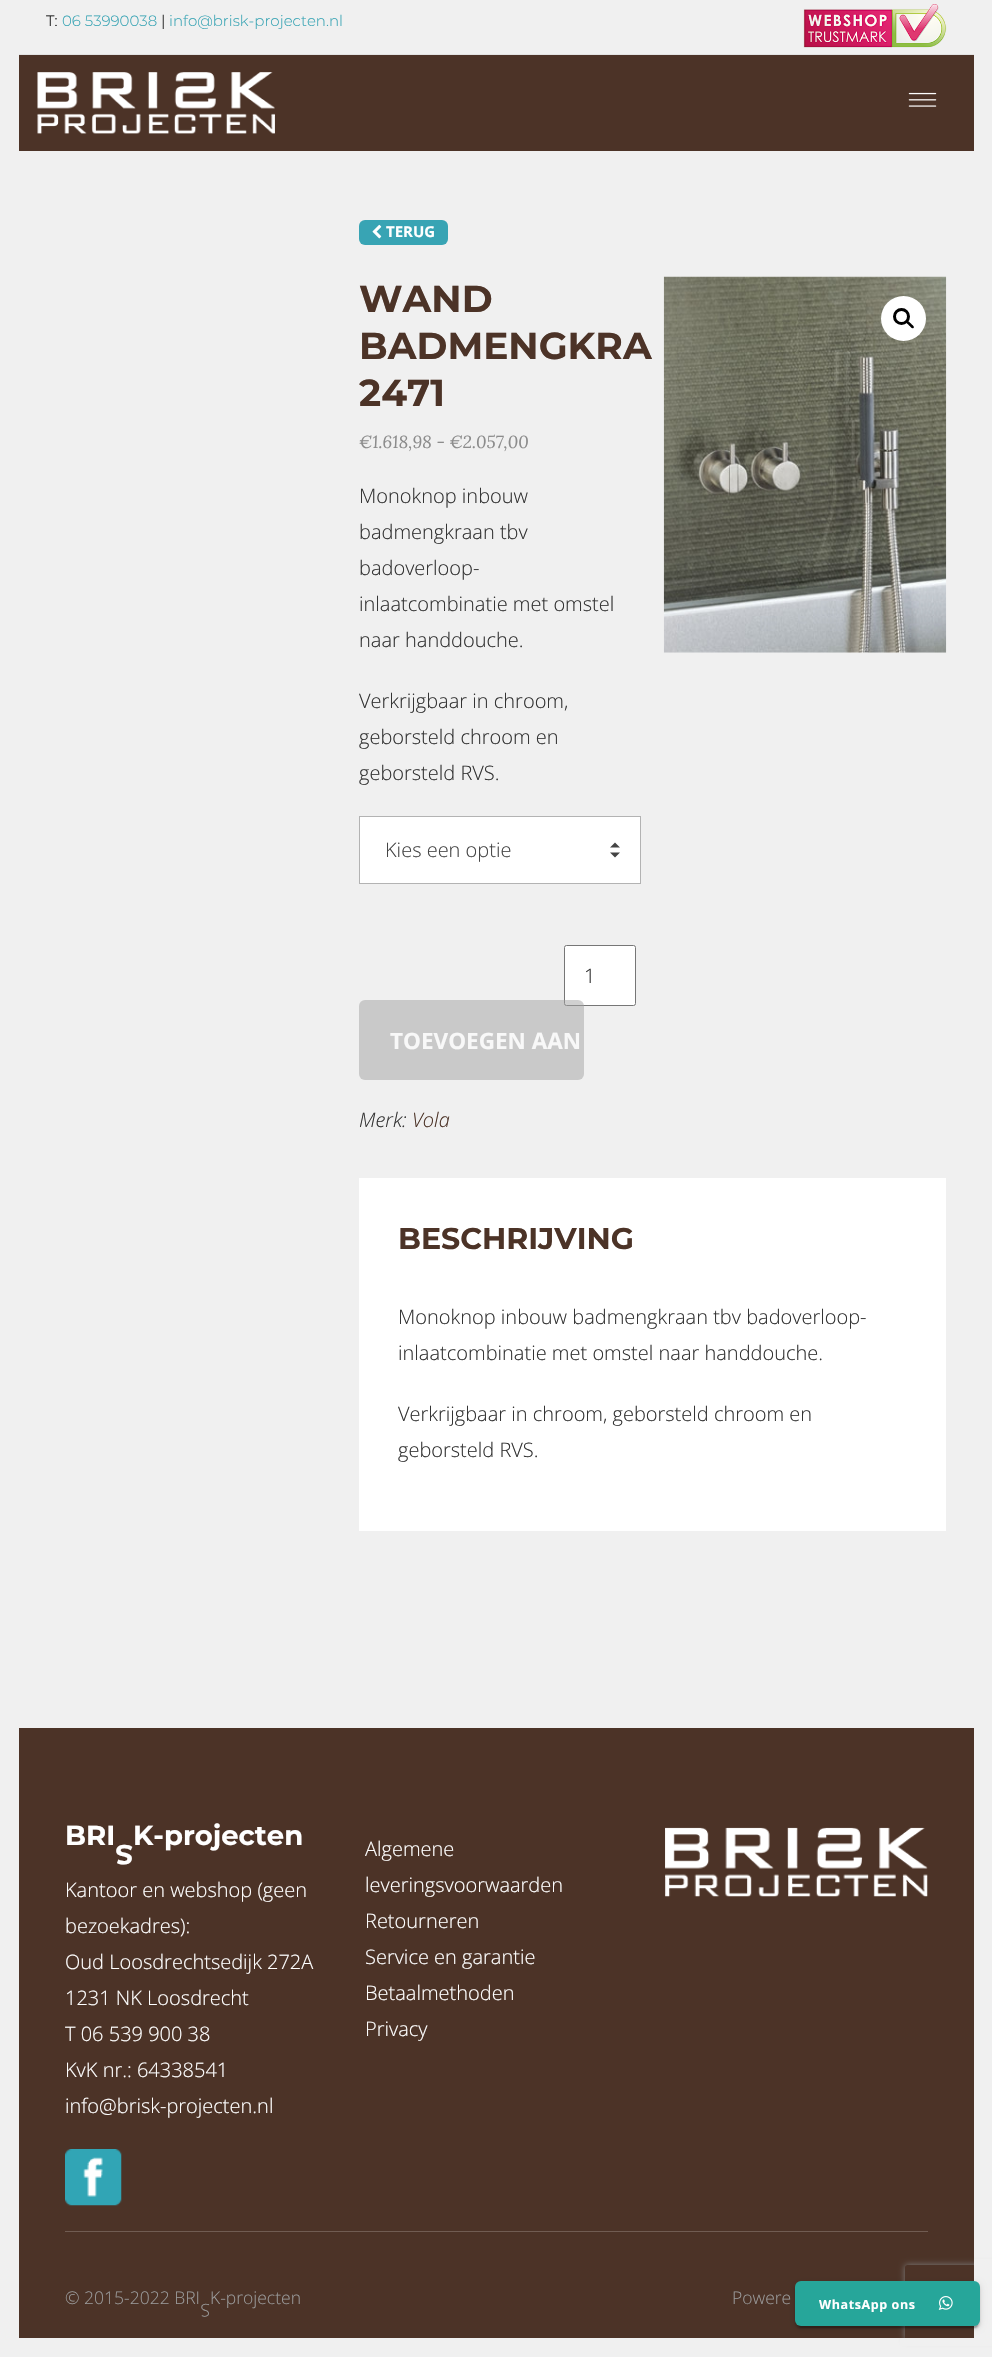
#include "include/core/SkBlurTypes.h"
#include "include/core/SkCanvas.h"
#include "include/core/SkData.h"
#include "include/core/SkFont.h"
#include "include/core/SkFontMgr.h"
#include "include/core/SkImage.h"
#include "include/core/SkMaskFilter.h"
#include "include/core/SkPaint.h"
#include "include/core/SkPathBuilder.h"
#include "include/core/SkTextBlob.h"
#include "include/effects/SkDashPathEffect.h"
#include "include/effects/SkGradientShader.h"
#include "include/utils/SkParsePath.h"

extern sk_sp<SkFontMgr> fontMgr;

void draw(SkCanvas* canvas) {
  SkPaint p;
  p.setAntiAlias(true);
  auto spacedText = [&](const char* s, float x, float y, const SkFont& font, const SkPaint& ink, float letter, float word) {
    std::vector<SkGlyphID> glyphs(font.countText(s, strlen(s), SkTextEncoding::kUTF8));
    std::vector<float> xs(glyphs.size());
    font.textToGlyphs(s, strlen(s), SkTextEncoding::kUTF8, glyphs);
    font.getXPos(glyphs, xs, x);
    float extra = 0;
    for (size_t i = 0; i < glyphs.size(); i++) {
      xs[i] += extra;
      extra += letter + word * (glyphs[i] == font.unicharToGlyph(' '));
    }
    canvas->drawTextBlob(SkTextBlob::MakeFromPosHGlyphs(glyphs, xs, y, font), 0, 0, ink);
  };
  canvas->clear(SkColorSetRGB(240, 240, 240));
  p.setColor(SkColorSetRGB(226, 226, 226));
  canvas->drawRect(SkRect::MakeLTRB(19, 54, 974, 55), p);
  canvas->drawImageRect(SkImages::DeferredFromEncodedData(SkData::MakeFromFileName("images/1.png")), SkRect::MakeLTRB(803, 4, 947, 48), SkSamplingOptions());
  p.setColor(SkColorSetRGB(76, 51, 39));
  canvas->drawRect(SkRect::MakeLTRB(19, 55, 974, 151), p);
  canvas->drawImageRect(SkImages::DeferredFromEncodedData(SkData::MakeFromFileName("images/2.png")), SkRect::MakeLTRB(37, 72, 275, 134), SkSamplingOptions());
  canvas->drawImageRect(SkImages::DeferredFromEncodedData(SkData::MakeFromFileName("images/3.png")), SkRect::MakeLTRB(908, 92, 937, 107), SkSamplingOptions());
  p.setColor(SkColorSetRGB(56, 164, 180));
  canvas->drawRoundRect(SkRect::MakeLTRB(359, 220, 448, 245), 6, 6, p);
  canvas->drawImageRect(SkImages::DeferredFromEncodedData(SkData::MakeFromFileName("images/4.png")), SkRect::MakeLTRB(372, 224, 382, 239), SkSamplingOptions());
  p.setColor(SK_ColorWHITE);
  canvas->drawRect(SkRect::MakeLTRB(359.5f, 816.5f, 640.5f, 883.5f), p);
  p.setStyle(SkPaint::kStroke_Style);
  p.setStrokeWidth(1);
  p.setColor(SkColorSetRGB(179, 179, 179));
  canvas->drawRect(SkRect::MakeLTRB(359.5f, 816.5f, 640.5f, 883.5f), p);
  p.setStyle(SkPaint::kFill_Style);
  p.setColor(SkColorSetRGB(68, 68, 68));
  canvas->drawPath(SkPathBuilder().moveTo(620, 847.5f).lineTo(610, 847.5f).lineTo(615, 842.5f).close().moveTo(610, 852.5f).lineTo(620, 852.5f).lineTo(615, 857.5f).close().detach(), p);
  p.setColor(SK_ColorWHITE);
  canvas->drawRoundRect(SkRect::MakeLTRB(564.5f, 945.5f, 635.5f, 1005.5f), 2, 2, p);
  p.setStyle(SkPaint::kStroke_Style);
  p.setColor(SkColorSetRGB(118, 118, 118));
  canvas->drawRoundRect(SkRect::MakeLTRB(564.5f, 945.5f, 635.5f, 1005.5f), 2, 2, p);
  p.setStyle(SkPaint::kFill_Style);
  p.setColor(SkColorSetARGB(128, 161, 161, 161));
  canvas->drawRoundRect(SkRect::MakeLTRB(359, 1000, 584, 1080), 6, 6, p);
  canvas->drawImageRect(SkImages::DeferredFromEncodedData(SkData::MakeFromFileName("images/5.png")), SkRect::MakeLTRB(663, 276, 947, 653), SkSamplingOptions());
  p.setColor(SK_ColorWHITE);
  canvas->drawCircle(903.5f, 318.5f, 22.5f, p);
  p.setStyle(SkPaint::kStroke_Style);
  p.setStrokeWidth(3);
  p.setColor(SK_ColorBLACK);
  canvas->drawCircle(901.5f, 316.5f, 7, p);
  p.setStyle(SkPaint::kFill_Style);
  canvas->drawPath(SkPathBuilder().moveTo(906.5f, 321).cubicTo(908, 319.5f, 910, 323, 911, 323.5f).cubicTo(911.5f, 324.5f, 915, 326.5f, 913.5f, 328).cubicTo(912, 329.5f, 910, 326, 909, 325.5f).cubicTo(908.5f, 324.5f, 905, 322.5f, 906.5f, 321).close().detach(), p);
  p.setColor(SK_ColorWHITE);
  canvas->drawRect(SkRect::MakeLTRB(359, 1178, 946, 1531), p);
  p.setColor(SkColorSetRGB(76, 51, 39));
  canvas->drawRect(SkRect::MakeLTRB(19, 1728, 974, 2338), p);
  canvas->drawImageRect(SkImages::DeferredFromEncodedData(SkData::MakeFromFileName("images/6.png")), SkRect::MakeLTRB(65, 2149, 122, 2206), SkSamplingOptions());
  canvas->drawImageRect(SkImages::DeferredFromEncodedData(SkData::MakeFromFileName("images/7.png")), SkRect::MakeLTRB(665, 1827, 928, 1897), SkSamplingOptions());
  p.setColor(SkColorSetRGB(112, 92, 82));
  canvas->drawRect(SkRect::MakeLTRB(65, 2231, 928, 2232), p);
  canvas->save();
  canvas->clipPath(SkPathBuilder(SkPathFillType::kEvenOdd).moveTo(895, 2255).lineTo(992, 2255).lineTo(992, 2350).lineTo(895, 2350).close().moveTo(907.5f, 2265).lineTo(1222.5f, 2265).cubicTo(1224, 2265, 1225, 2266, 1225, 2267.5f).lineTo(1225, 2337.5f).cubicTo(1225, 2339, 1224, 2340, 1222.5f, 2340).lineTo(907.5f, 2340).cubicTo(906, 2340, 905, 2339, 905, 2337.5f).lineTo(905, 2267.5f).cubicTo(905, 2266, 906, 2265, 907.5f, 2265).close().detach(), true);
  p.setColor(SkColorSetRGB(128, 128, 128));
  p.setMaskFilter(SkMaskFilter::MakeBlur(kNormal_SkBlurStyle, 3));
  canvas->drawRoundRect(SkRect::MakeLTRB(905, 2265, 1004, 2340), 2.5f, 2.5f, p);
  p.setMaskFilter(nullptr);
  canvas->restore();
  p.setColor(SkColorSetRGB(240, 240, 240));
  canvas->drawRect(SkRect::MakeLTRB(974, 2259, 992, 2265), p);
  canvas->drawRect(SkRect::MakeLTRB(900, 2338, 992, 2346), p);
  p.setColor(SkColorSetARGB(51, 0, 0, 0));
  p.setMaskFilter(SkMaskFilter::MakeBlur(kNormal_SkBlurStyle, 0.5f));
  canvas->drawRoundRect(SkRect::MakeLTRB(798, 2288, 978, 2328), 4, 4, p);
  p.setMaskFilter(nullptr);
  p.setColor(SkColorSetARGB(31, 0, 0, 0));
  p.setMaskFilter(SkMaskFilter::MakeBlur(kNormal_SkBlurStyle, 3));
  canvas->drawRoundRect(SkRect::MakeLTRB(795, 2283, 980, 2328), 6, 6, p);
  p.setMaskFilter(nullptr);
  p.setColor(SkColorSetARGB(36, 0, 0, 0));
  p.setMaskFilter(SkMaskFilter::MakeBlur(kNormal_SkBlurStyle, 1));
  canvas->drawRoundRect(SkRect::MakeLTRB(795, 2284, 980, 2329), 6, 6, p);
  p.setMaskFilter(nullptr);
  p.setColor(SkColorSetRGB(38, 166, 154));
  canvas->drawRoundRect(SkRect::MakeLTRB(795, 2281, 980, 2326), 6, 6, p);
  canvas->drawImageRect(SkImages::DeferredFromEncodedData(SkData::MakeFromFileName("images/8.png")), SkRect::MakeLTRB(938, 2296, 953, 2310), SkSamplingOptions());
  SkFont font1(fontMgr->matchFamilyStyle("Montserrat", SkFontStyle(300, SkFontStyle::kNormal_Width, SkFontStyle::kUpright_Slant)), 15);
  font1.setSubpixel(true);
  p.setColor(SK_ColorBLACK);
  canvas->drawString("T:", 46, 26, font1, p);
  p.setColor(SkColorSetRGB(56, 164, 180));
  canvas->drawString("06 53990038", 62, 26, font1, p);
  p.setColor(SK_ColorBLACK);
  canvas->drawString("|", 161, 26, font1, p);
  p.setColor(SkColorSetRGB(56, 164, 180));
  canvas->drawString("info@brisk-projecten.nl", 169, 26, font1, p);
  SkFont font2(fontMgr->matchFamilyStyle("Open Sans", SkFontStyle::Bold()), 15);
  font2.setSubpixel(true);
  p.setColor(SK_ColorWHITE);
  canvas->drawString("TERUG", 386, 237, font2, p);
  SkFont font3(fontMgr->matchFamilyStyle("Montserrat", SkFontStyle::Bold()), 37.5f);
  font3.setSubpixel(true);
  p.setColor(SkColorSetRGB(76, 51, 39));
  canvas->drawString("WAND", 359, 312, font3, p);
  canvas->drawString("BADMENGKRA", 359, 359, font3, p);
  canvas->drawString("2471", 359, 406, font3, p);
  SkFont font4(fontMgr->matchFamilyStyle("Lora", SkFontStyle::Italic()), 17.5f);
  font4.setSubpixel(true);
  p.setColor(SkColorSetRGB(140, 140, 140));
  canvas->drawString("€1.618,98 - €2.057,00", 359, 448, font4, p);
  SkFont font5(fontMgr->matchFamilyStyle("Open Sans", SkFontStyle(300, SkFontStyle::kNormal_Width, SkFontStyle::kUpright_Slant)), 20);
  font5.setSubpixel(true);
  p.setColor(SkColorSetRGB(51, 51, 51));
  canvas->drawString("Monoknop inbouw", 359, 503, font5, p);
  canvas->drawString("badmengkraan tbv", 359, 539, font5, p);
  canvas->drawString("badoverloop-", 359, 575, font5, p);
  canvas->drawString("inlaatcombinatie met omstel", 359, 611, font5, p);
  canvas->drawString("naar handdouche.", 359, 647, font5, p);
  canvas->drawString("Verkrijgbaar in chroom,", 359, 708, font5, p);
  canvas->drawString("geborsteld chroom en", 359, 744, font5, p);
  canvas->drawString("geborsteld RVS.", 359, 780, font5, p);
  p.setColor(SkColorSetRGB(68, 68, 68));
  canvas->drawString("Kies een optie", 385, 857, font5, p);
  p.setColor(SkColorSetRGB(51, 51, 51));
  canvas->drawString("1", 584, 983, font5, p);
  SkFont font6(fontMgr->matchFamilyStyle("Open Sans", SkFontStyle::Bold()), 22.5f);
  font6.setSubpixel(true);
  p.setColor(SkColorSetRGB(248, 248, 248));
  canvas->drawString("TOEVOEGEN AAN", 390, 1049, font6, p);
  SkFont font7(fontMgr->matchFamilyStyle("Open Sans", SkFontStyle(300, SkFontStyle::kNormal_Width, SkFontStyle::kItalic_Slant)), 20);
  font7.setSubpixel(true);
  p.setColor(SkColorSetRGB(51, 51, 51));
  canvas->drawString("Merk:", 359, 1127, font7, p);
  p.setColor(SkColorSetRGB(76, 51, 39));
  canvas->drawString("Vola", 412, 1127, font7, p);
  SkFont font8(fontMgr->matchFamilyStyle("Montserrat", SkFontStyle::Bold()), 30);
  font8.setSubpixel(true);
  canvas->drawString("BESCHRIJVING", 398, 1249, font8, p);
  p.setColor(SkColorSetRGB(51, 51, 51));
  canvas->drawString("Monoknop inbouw badmengkraan tbv badoverloop-", 398, 1324, font5, p);
  canvas->drawString("inlaatcombinatie met omstel naar handdouche.", 398, 1360, font5, p);
  canvas->drawString("Verkrijgbaar in chroom, geborsteld chroom en", 398, 1421, font5, p);
  canvas->drawString("geborsteld RVS.", 398, 1457, font5, p);
  SkFont font9(fontMgr->matchFamilyStyle("Montserrat", SkFontStyle::Bold()), 27.5f);
  font9.setSubpixel(true);
  p.setColor(SK_ColorWHITE);
  canvas->drawString("BRI", 65, 1845, font9, p);
  canvas->drawString("K-projecten", 133, 1845, font9, p);
  canvas->save();
  canvas->rotate(180, 133, 1845);
  canvas->drawString("S", 133, 1845, font9, p);
  canvas->restore();
  canvas->drawString("Kantoor en webshop (geen", 65, 1897, font5, p);
  canvas->drawString("bezoekadres):", 65, 1933, font5, p);
  canvas->drawString("Oud Loosdrechtsedijk 272A", 65, 1969, font5, p);
  canvas->drawString("1231 NK Loosdrecht", 65, 2005, font5, p);
  canvas->drawString("T 06 539 900 38", 65, 2041, font5, p);
  canvas->drawString("KvK nr.: 64338541", 65, 2077, font5, p);
  canvas->drawString("info@brisk-projecten.nl", 65, 2113, font5, p);
  canvas->drawString("Algemene", 365, 1856, font5, p);
  canvas->drawString("leveringsvoorwaarden", 365, 1892, font5, p);
  canvas->drawString("Retourneren", 365, 1928, font5, p);
  canvas->drawString("Service en garantie", 365, 1964, font5, p);
  canvas->drawString("Betaalmethoden", 365, 2000, font5, p);
  canvas->drawString("Privacy", 365, 2036, font5, p);
  SkFont font10(fontMgr->matchFamilyStyle("Open Sans", SkFontStyle(300, SkFontStyle::kNormal_Width, SkFontStyle::kUpright_Slant)), 17.5f);
  font10.setSubpixel(true);
  p.setColor(SkColorSetRGB(153, 153, 153));
  canvas->drawString("© 2015-2022 BRI", 65, 2304, font10, p);
  canvas->save();
  canvas->rotate(180, 210, 2304);
  canvas->drawString("S", 210, 2304, font10, p);
  canvas->restore();
  canvas->drawString("K-projecten", 210, 2304, font10, p);
  canvas->drawString("Powere", 732, 2304, font10, p);
  SkFont font11(fontMgr->matchFamilyStyle("Open Sans", SkFontStyle::Bold()), 12.5f);
  font11.setSubpixel(true);
  p.setColor(SK_ColorWHITE);
  spacedText("WhatsApp ons", 819, 2309, font11, p, 0.6f, 0);
}
